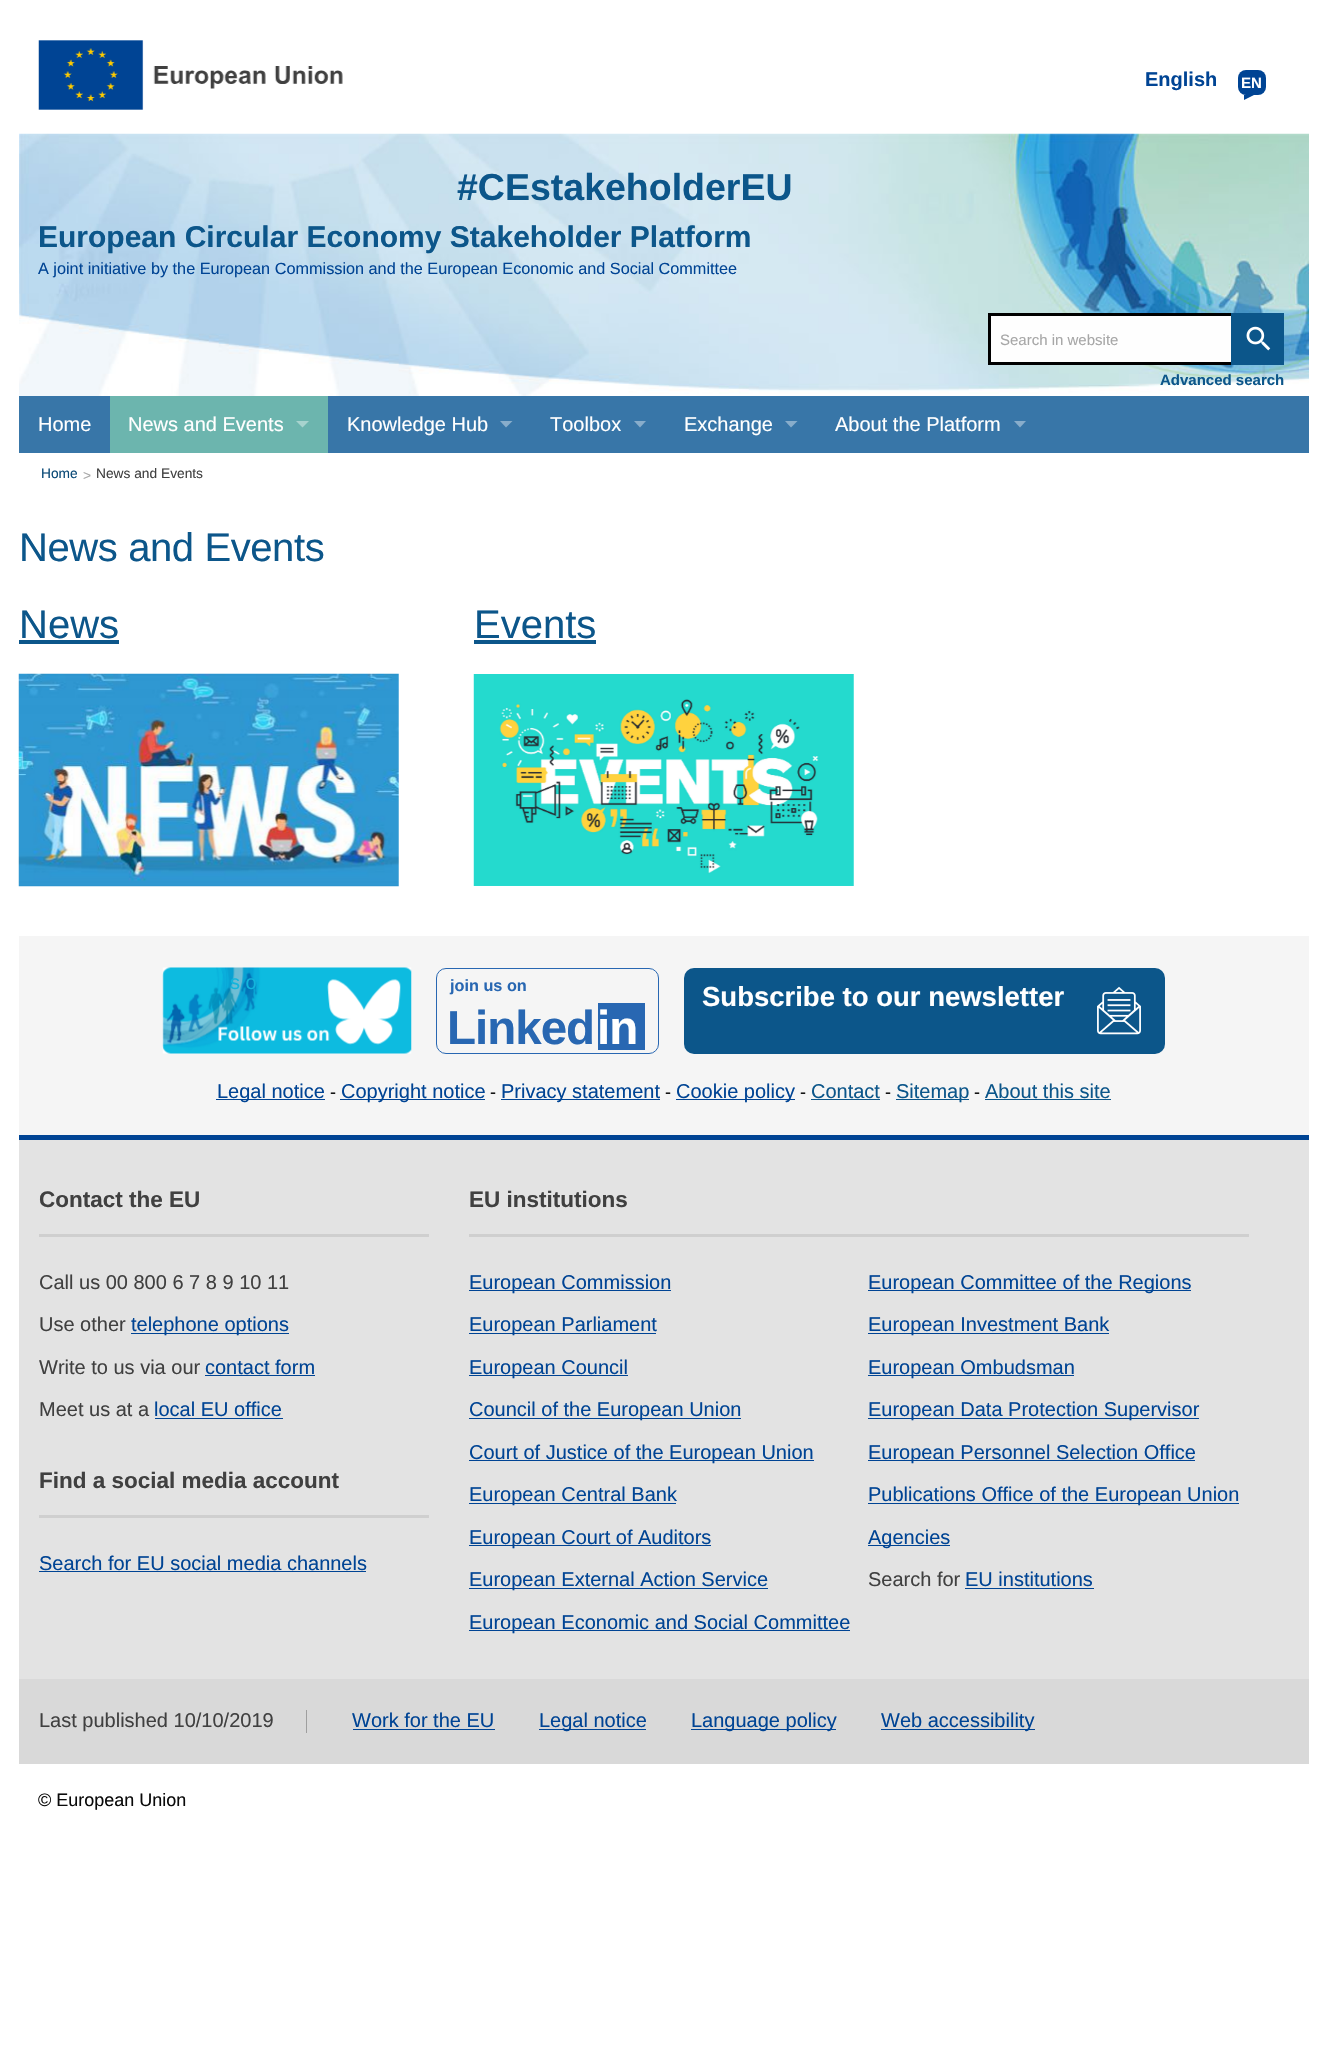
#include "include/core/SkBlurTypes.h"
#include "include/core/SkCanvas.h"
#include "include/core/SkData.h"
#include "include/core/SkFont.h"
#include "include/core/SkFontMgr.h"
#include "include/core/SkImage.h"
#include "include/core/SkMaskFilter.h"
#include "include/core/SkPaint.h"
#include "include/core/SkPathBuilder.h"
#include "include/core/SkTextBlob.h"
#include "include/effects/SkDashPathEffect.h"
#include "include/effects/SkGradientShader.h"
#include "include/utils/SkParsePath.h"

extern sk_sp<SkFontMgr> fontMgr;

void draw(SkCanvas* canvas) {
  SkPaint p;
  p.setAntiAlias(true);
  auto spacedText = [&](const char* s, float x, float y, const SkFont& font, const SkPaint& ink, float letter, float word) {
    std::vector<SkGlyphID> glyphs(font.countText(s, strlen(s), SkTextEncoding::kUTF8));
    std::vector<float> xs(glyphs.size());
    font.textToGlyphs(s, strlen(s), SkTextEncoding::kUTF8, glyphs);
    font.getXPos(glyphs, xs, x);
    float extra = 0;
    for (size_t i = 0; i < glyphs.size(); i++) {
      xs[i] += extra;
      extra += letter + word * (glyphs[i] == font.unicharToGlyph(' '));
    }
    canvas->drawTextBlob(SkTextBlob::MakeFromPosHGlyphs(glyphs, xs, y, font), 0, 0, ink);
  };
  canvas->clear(SK_ColorWHITE);
  canvas->drawImageRect(SkImages::DeferredFromEncodedData(SkData::MakeFromFileName("images/1.png")), SkRect::MakeLTRB(38, 40, 343, 110), SkSamplingOptions());
  p.setColor(SkColorSetRGB(0, 68, 148));
  canvas->drawRoundRect(SkRect::MakeLTRB(1238, 70, 1266, 95), 8, 8, p);
  canvas->drawPath(SkPathBuilder().moveTo(1244, 95).lineTo(1254, 95).lineTo(1244, 100).close().detach(), p);
  canvas->drawImageRect(SkImages::DeferredFromEncodedData(SkData::MakeFromFileName("images/2.png")), SkRect::MakeLTRB(19, 133, 1309, 396), SkSamplingOptions());
  p.setColor(SkColorSetRGB(254, 254, 254));
  canvas->drawRect(SkRect::MakeLTRB(991, 316, 1231, 362), p);
  p.setStyle(SkPaint::kStroke_Style);
  p.setStrokeWidth(3);
  p.setColor(SK_ColorBLACK);
  canvas->drawRect(SkRect::MakeLTRB(989.5f, 314.5f, 1282.5f, 363.5f), p);
  p.setStyle(SkPaint::kFill_Style);
  p.setColor(SkColorSetRGB(12, 86, 138));
  canvas->drawRect(SkRect::MakeLTRB(1231, 313, 1284, 365), p);
  canvas->drawImageRect(SkImages::DeferredFromEncodedData(SkData::MakeFromFileName("images/3.png")), SkRect::MakeLTRB(1246, 326, 1271, 351), SkSamplingOptions());
  p.setColor(SkColorSetRGB(56, 118, 168));
  canvas->drawRect(SkRect::MakeLTRB(19, 396, 1309, 453), p);
  p.setColor(SkColorSetRGB(108, 181, 174));
  canvas->drawRect(SkRect::MakeLTRB(110, 396, 328, 453), p);
  p.setColor(SkColorSetRGB(167, 211, 206));
  canvas->drawPath(SkPathBuilder().moveTo(296, 421).lineTo(309, 421).lineTo(302.5f, 427.5f).close().detach(), p);
  p.setColor(SkColorSetRGB(136, 173, 203));
  canvas->drawPath(SkPathBuilder().moveTo(500, 421).lineTo(512.5f, 421).lineTo(506, 427.5f).close().detach(), p);
  canvas->drawPath(SkPathBuilder().moveTo(634, 421).lineTo(646, 421).lineTo(640, 427.5f).close().detach(), p);
  canvas->drawPath(SkPathBuilder().moveTo(785, 421).lineTo(797.5f, 421).lineTo(791, 427.5f).close().detach(), p);
  canvas->drawPath(SkPathBuilder().moveTo(1014, 421).lineTo(1026, 421).lineTo(1020, 427.5f).close().detach(), p);
  p.setColor(SkColorSetRGB(12, 86, 138));
  canvas->drawRect(SkRect::MakeLTRB(19, 640, 119, 644), p);
  canvas->drawImageRect(SkImages::DeferredFromEncodedData(SkData::MakeFromFileName("images/4.png")), SkRect::MakeLTRB(18, 673, 399, 887), SkSamplingOptions());
  canvas->drawRect(SkRect::MakeLTRB(474, 640, 596, 644), p);
  canvas->drawImageRect(SkImages::DeferredFromEncodedData(SkData::MakeFromFileName("images/5.png")), SkRect::MakeLTRB(473, 674, 854, 886), SkSamplingOptions());
  p.setColor(SkColorSetRGB(245, 245, 245));
  canvas->drawRect(SkRect::MakeLTRB(19, 936, 1309, 1135), p);
  canvas->drawImageRect(SkImages::DeferredFromEncodedData(SkData::MakeFromFileName("images/6.png")), SkRect::MakeLTRB(162, 967, 412, 1054), SkSamplingOptions());
  p.setStyle(SkPaint::kStroke_Style);
  p.setStrokeWidth(1);
  p.setColor(SkColorSetRGB(40, 103, 178));
  canvas->drawRoundRect(SkRect::MakeLTRB(436.5f, 968.5f, 658.5f, 1053.5f), 9.5f, 9.5f, p);
  p.setStyle(SkPaint::kFill_Style);
  canvas->drawRect(SkRect::MakeLTRB(598, 1003, 645, 1050), p);
  p.setColor(SkColorSetRGB(12, 86, 138));
  canvas->drawRoundRect(SkRect::MakeLTRB(684, 968, 1165, 1054), 10, 10, p);
  canvas->drawImageRect(SkImages::DeferredFromEncodedData(SkData::MakeFromFileName("images/7.png")), SkRect::MakeLTRB(1097, 986, 1141, 1035), SkSamplingOptions());
  p.setColor(SkColorSetRGB(0, 68, 148));
  canvas->drawRect(SkRect::MakeLTRB(216, 1099, 325, 1100), p);
  canvas->drawRect(SkRect::MakeLTRB(340, 1099, 485, 1100), p);
  canvas->drawRect(SkRect::MakeLTRB(501, 1099, 660, 1100), p);
  canvas->drawRect(SkRect::MakeLTRB(676, 1099, 795, 1100), p);
  p.setColor(SkColorSetRGB(12, 86, 138));
  canvas->drawRect(SkRect::MakeLTRB(811, 1099, 880, 1100), p);
  canvas->drawRect(SkRect::MakeLTRB(896, 1099, 969, 1100), p);
  canvas->drawRect(SkRect::MakeLTRB(985, 1099, 1111, 1100), p);
  p.setColor(SkColorSetRGB(0, 68, 148));
  canvas->drawRect(SkRect::MakeLTRB(19, 1135, 1309, 1140), p);
  p.setColor(SkColorSetRGB(227, 227, 227));
  canvas->drawRect(SkRect::MakeLTRB(19, 1140, 1309, 1679), p);
  p.setColor(SkColorSetRGB(207, 207, 207));
  canvas->drawRect(SkRect::MakeLTRB(39, 1234, 429, 1237), p);
  p.setColor(SkColorSetRGB(0, 68, 148));
  canvas->drawRect(SkRect::MakeLTRB(131, 1333, 289, 1334), p);
  canvas->drawRect(SkRect::MakeLTRB(205, 1375, 315, 1376), p);
  canvas->drawRect(SkRect::MakeLTRB(155, 1418, 283, 1419), p);
  p.setColor(SkColorSetRGB(207, 207, 207));
  canvas->drawRect(SkRect::MakeLTRB(39, 1515, 429, 1518), p);
  p.setColor(SkColorSetRGB(0, 68, 148));
  canvas->drawRect(SkRect::MakeLTRB(39, 1571, 366, 1572), p);
  p.setColor(SkColorSetRGB(207, 207, 207));
  canvas->drawRect(SkRect::MakeLTRB(469, 1234, 1249, 1237), p);
  p.setColor(SkColorSetRGB(0, 68, 148));
  canvas->drawRect(SkRect::MakeLTRB(469, 1290, 671, 1291), p);
  canvas->drawRect(SkRect::MakeLTRB(868, 1290, 1191, 1291), p);
  canvas->drawRect(SkRect::MakeLTRB(469, 1333, 656, 1334), p);
  canvas->drawRect(SkRect::MakeLTRB(868, 1333, 1109, 1334), p);
  canvas->drawRect(SkRect::MakeLTRB(469, 1375, 628, 1376), p);
  canvas->drawRect(SkRect::MakeLTRB(868, 1375, 1074, 1376), p);
  canvas->drawRect(SkRect::MakeLTRB(469, 1418, 741, 1419), p);
  canvas->drawRect(SkRect::MakeLTRB(868, 1418, 1199, 1419), p);
  canvas->drawRect(SkRect::MakeLTRB(469, 1460, 814, 1461), p);
  canvas->drawRect(SkRect::MakeLTRB(868, 1460, 1195, 1461), p);
  canvas->drawRect(SkRect::MakeLTRB(469, 1503, 676, 1504), p);
  canvas->drawRect(SkRect::MakeLTRB(868, 1503, 1239, 1504), p);
  canvas->drawRect(SkRect::MakeLTRB(469, 1545, 711, 1546), p);
  canvas->drawRect(SkRect::MakeLTRB(868, 1545, 950, 1546), p);
  canvas->drawRect(SkRect::MakeLTRB(469, 1588, 768, 1589), p);
  canvas->drawRect(SkRect::MakeLTRB(965, 1588, 1094, 1589), p);
  canvas->drawRect(SkRect::MakeLTRB(469, 1630, 850, 1631), p);
  p.setColor(SkColorSetRGB(217, 217, 217));
  canvas->drawRect(SkRect::MakeLTRB(19, 1679, 1309, 1764), p);
  p.setColor(SkColorSetRGB(159, 159, 159));
  canvas->drawRect(SkRect::MakeLTRB(306, 1710, 307, 1733), p);
  p.setColor(SkColorSetRGB(0, 68, 148));
  canvas->drawRect(SkRect::MakeLTRB(353, 1729, 495, 1730), p);
  canvas->drawRect(SkRect::MakeLTRB(539, 1729, 646, 1730), p);
  canvas->drawRect(SkRect::MakeLTRB(691, 1729, 836, 1730), p);
  canvas->drawRect(SkRect::MakeLTRB(881, 1729, 1035, 1730), p);
  SkFont font1(fontMgr->matchFamilyStyle("Liberation Sans", SkFontStyle::Bold()), 20);
  font1.setSubpixel(true);
  canvas->drawString("English", 1145, 86, font1, p);
  SkFont font2(fontMgr->matchFamilyStyle("Liberation Sans", SkFontStyle::Bold()), 15);
  font2.setSubpixel(true);
  p.setColor(SK_ColorWHITE);
  canvas->drawString("EN", 1241, 88, font2, p);
  SkFont font3(fontMgr->matchFamilyStyle("Liberation Sans", SkFontStyle::Bold()), 37.5f);
  font3.setSubpixel(true);
  p.setColor(SkColorSetRGB(12, 86, 138));
  canvas->drawString("#CEstakeholderEU", 457, 200, font3, p);
  SkFont font4(fontMgr->matchFamilyStyle("Liberation Sans", SkFontStyle::Bold()), 30);
  font4.setSubpixel(true);
  canvas->drawString("European Circular Economy Stakeholder Platform", 38, 247, font4, p);
  SkFont font5(fontMgr->matchFamilyStyle("Liberation Sans", SkFontStyle::Normal()), 16.25f);
  font5.setSubpixel(true);
  p.setColor(SkColorSetRGB(0, 68, 148));
  canvas->drawString("A joint initiative by the European Commission and the European Economic and Social Committee", 38, 274, font5, p);
  SkFont font6(fontMgr->matchFamilyStyle("Liberation Sans", SkFontStyle::Normal()), 15);
  font6.setSubpixel(true);
  p.setColor(SkColorSetRGB(167, 167, 167));
  canvas->drawString("Search in website", 1000, 345, font6, p);
  p.setColor(SkColorSetRGB(12, 86, 138));
  canvas->drawString("Advanced search", 1160, 385, font2, p);
  SkFont font7(fontMgr->matchFamilyStyle("Liberation Sans", SkFontStyle::Normal()), 20);
  font7.setSubpixel(true);
  p.setColor(SK_ColorWHITE);
  canvas->drawString("Home", 38, 431, font7, p);
  canvas->drawString("News and Events", 128, 431, font7, p);
  canvas->drawString("Knowledge Hub", 347, 431, font7, p);
  canvas->drawString("Toolbox", 550, 431, font7, p);
  canvas->drawString("Exchange", 684, 431, font7, p);
  canvas->drawString("About the Platform", 835, 431, font7, p);
  SkFont font8(fontMgr->matchFamilyStyle("Liberation Sans", SkFontStyle::Normal()), 13.75f);
  font8.setSubpixel(true);
  p.setColor(SkColorSetRGB(10, 74, 119));
  canvas->drawString("Home", 41, 478, font8, p);
  p.setColor(SkColorSetRGB(167, 167, 167));
  canvas->drawString(">", 83, 480, font8, p);
  p.setColor(SkColorSetRGB(64, 64, 64));
  canvas->drawString("News and Events", 96, 478, font8, p);
  SkFont font9(fontMgr->matchFamilyStyle("Liberation Sans", SkFontStyle::Normal()), 40);
  font9.setSubpixel(true);
  p.setColor(SkColorSetRGB(12, 86, 138));
  spacedText("News and Events", 19, 561, font9, p, -0.4f, 0);
  canvas->drawString("News", 19, 638, font9, p);
  canvas->drawString("Events", 474, 638, font9, p);
  p.setColor(SkColorSetRGB(18, 181, 220));
  canvas->drawString("s o", 230, 989, font7, p);
  SkFont font10(fontMgr->matchFamilyStyle("Liberation Sans", SkFontStyle::Bold()), 16.25f);
  font10.setSubpixel(true);
  p.setColor(SkColorSetRGB(40, 103, 178));
  canvas->drawString("join us on", 450, 991, font10, p);
  SkFont font11(fontMgr->matchFamilyStyle("Liberation Sans", SkFontStyle::Bold()), 47.5f);
  font11.setSubpixel(true);
  spacedText("Linked", 447, 1044, font11, p, -1, 0);
  p.setColor(SK_ColorWHITE);
  spacedText("in", 597, 1044, font11, p, -1, 0);
  SkFont font12(fontMgr->matchFamilyStyle("Liberation Sans", SkFontStyle::Bold()), 27.5f);
  font12.setSubpixel(true);
  canvas->drawString("Subscribe to our newsletter", 702, 1006, font12, p);
  p.setColor(SkColorSetRGB(0, 68, 148));
  canvas->drawString("Legal notice", 217, 1098, font7, p);
  SkFont font13(fontMgr->matchFamilyStyle("Liberation Sans", SkFontStyle::Normal()), 18);
  font13.setSubpixel(true);
  p.setColor(SkColorSetRGB(10, 10, 10));
  canvas->drawString("-", 330, 1098, font13, p);
  p.setColor(SkColorSetRGB(0, 68, 148));
  canvas->drawString("Copyright notice", 341, 1098, font7, p);
  p.setColor(SkColorSetRGB(10, 10, 10));
  canvas->drawString("-", 490, 1098, font13, p);
  p.setColor(SkColorSetRGB(0, 68, 148));
  canvas->drawString("Privacy statement", 501, 1098, font7, p);
  p.setColor(SkColorSetRGB(10, 10, 10));
  canvas->drawString("-", 665, 1098, font13, p);
  p.setColor(SkColorSetRGB(0, 68, 148));
  canvas->drawString("Cookie policy", 676, 1098, font7, p);
  p.setColor(SkColorSetRGB(10, 10, 10));
  canvas->drawString("-", 800, 1098, font13, p);
  p.setColor(SkColorSetRGB(12, 86, 138));
  canvas->drawString("Contact", 811, 1098, font7, p);
  p.setColor(SkColorSetRGB(10, 10, 10));
  canvas->drawString("-", 885, 1098, font13, p);
  p.setColor(SkColorSetRGB(12, 86, 138));
  canvas->drawString("Sitemap", 896, 1098, font7, p);
  p.setColor(SkColorSetRGB(10, 10, 10));
  canvas->drawString("-", 974, 1098, font13, p);
  p.setColor(SkColorSetRGB(12, 86, 138));
  canvas->drawString("About this site", 985, 1098, font7, p);
  SkFont font14(fontMgr->matchFamilyStyle("Liberation Sans", SkFontStyle::Bold()), 22.5f);
  font14.setSubpixel(true);
  p.setColor(SkColorSetRGB(64, 64, 64));
  canvas->drawString("Contact the EU", 39, 1207, font14, p);
  canvas->drawString("Call us 00 800 6 7 8 9 10 11", 39, 1289, font7, p);
  canvas->drawString("Use other", 39, 1331, font7, p);
  p.setColor(SkColorSetRGB(0, 68, 148));
  canvas->drawString("telephone options", 131, 1331, font7, p);
  p.setColor(SkColorSetRGB(64, 64, 64));
  canvas->drawString("Write to us via our", 39, 1374, font7, p);
  p.setColor(SkColorSetRGB(0, 68, 148));
  canvas->drawString("contact form", 205, 1374, font7, p);
  p.setColor(SkColorSetRGB(64, 64, 64));
  canvas->drawString("Meet us at a", 39, 1416, font7, p);
  p.setColor(SkColorSetRGB(0, 68, 148));
  canvas->drawString("local EU office", 154, 1416, font7, p);
  p.setColor(SkColorSetRGB(64, 64, 64));
  canvas->drawString("Find a social media account", 39, 1488, font14, p);
  p.setColor(SkColorSetRGB(0, 68, 148));
  canvas->drawString("Search for EU social media channels", 39, 1570, font7, p);
  p.setColor(SkColorSetRGB(64, 64, 64));
  canvas->drawString("EU institutions", 469, 1207, font14, p);
  p.setColor(SkColorSetRGB(0, 68, 148));
  canvas->drawString("European Commission", 469, 1289, font7, p);
  canvas->drawString("European Committee of the Regions", 868, 1289, font7, p);
  canvas->drawString("European Parliament", 469, 1331, font7, p);
  canvas->drawString("European Investment Bank", 868, 1331, font7, p);
  canvas->drawString("European Council", 469, 1374, font7, p);
  canvas->drawString("European Ombudsman", 868, 1374, font7, p);
  canvas->drawString("Council of the European Union", 469, 1416, font7, p);
  canvas->drawString("European Data Protection Supervisor", 868, 1416, font7, p);
  canvas->drawString("Court of Justice of the European Union", 469, 1459, font7, p);
  canvas->drawString("European Personnel Selection Office", 868, 1459, font7, p);
  canvas->drawString("European Central Bank", 469, 1501, font7, p);
  canvas->drawString("Publications Office of the European Union", 868, 1501, font7, p);
  canvas->drawString("European Court of Auditors", 469, 1544, font7, p);
  canvas->drawString("Agencies", 868, 1544, font7, p);
  canvas->drawString("European External Action Service", 469, 1586, font7, p);
  p.setColor(SkColorSetRGB(64, 64, 64));
  canvas->drawString("Search for", 868, 1586, font7, p);
  p.setColor(SkColorSetRGB(0, 68, 148));
  canvas->drawString("EU institutions", 965, 1586, font7, p);
  canvas->drawString("European Economic and Social Committee", 469, 1629, font7, p);
  p.setColor(SkColorSetRGB(64, 64, 64));
  canvas->drawString("Last published 10/10/2019", 39, 1727, font7, p);
  p.setColor(SkColorSetRGB(0, 68, 148));
  canvas->drawString("Work for the EU", 352, 1727, font7, p);
  canvas->drawString("Legal notice", 539, 1727, font7, p);
  canvas->drawString("Language policy", 691, 1727, font7, p);
  canvas->drawString("Web accessibility", 881, 1727, font7, p);
  p.setColor(SkColorSetRGB(10, 10, 10));
  canvas->drawString("© European Union", 38, 1806, font13, p);
}
